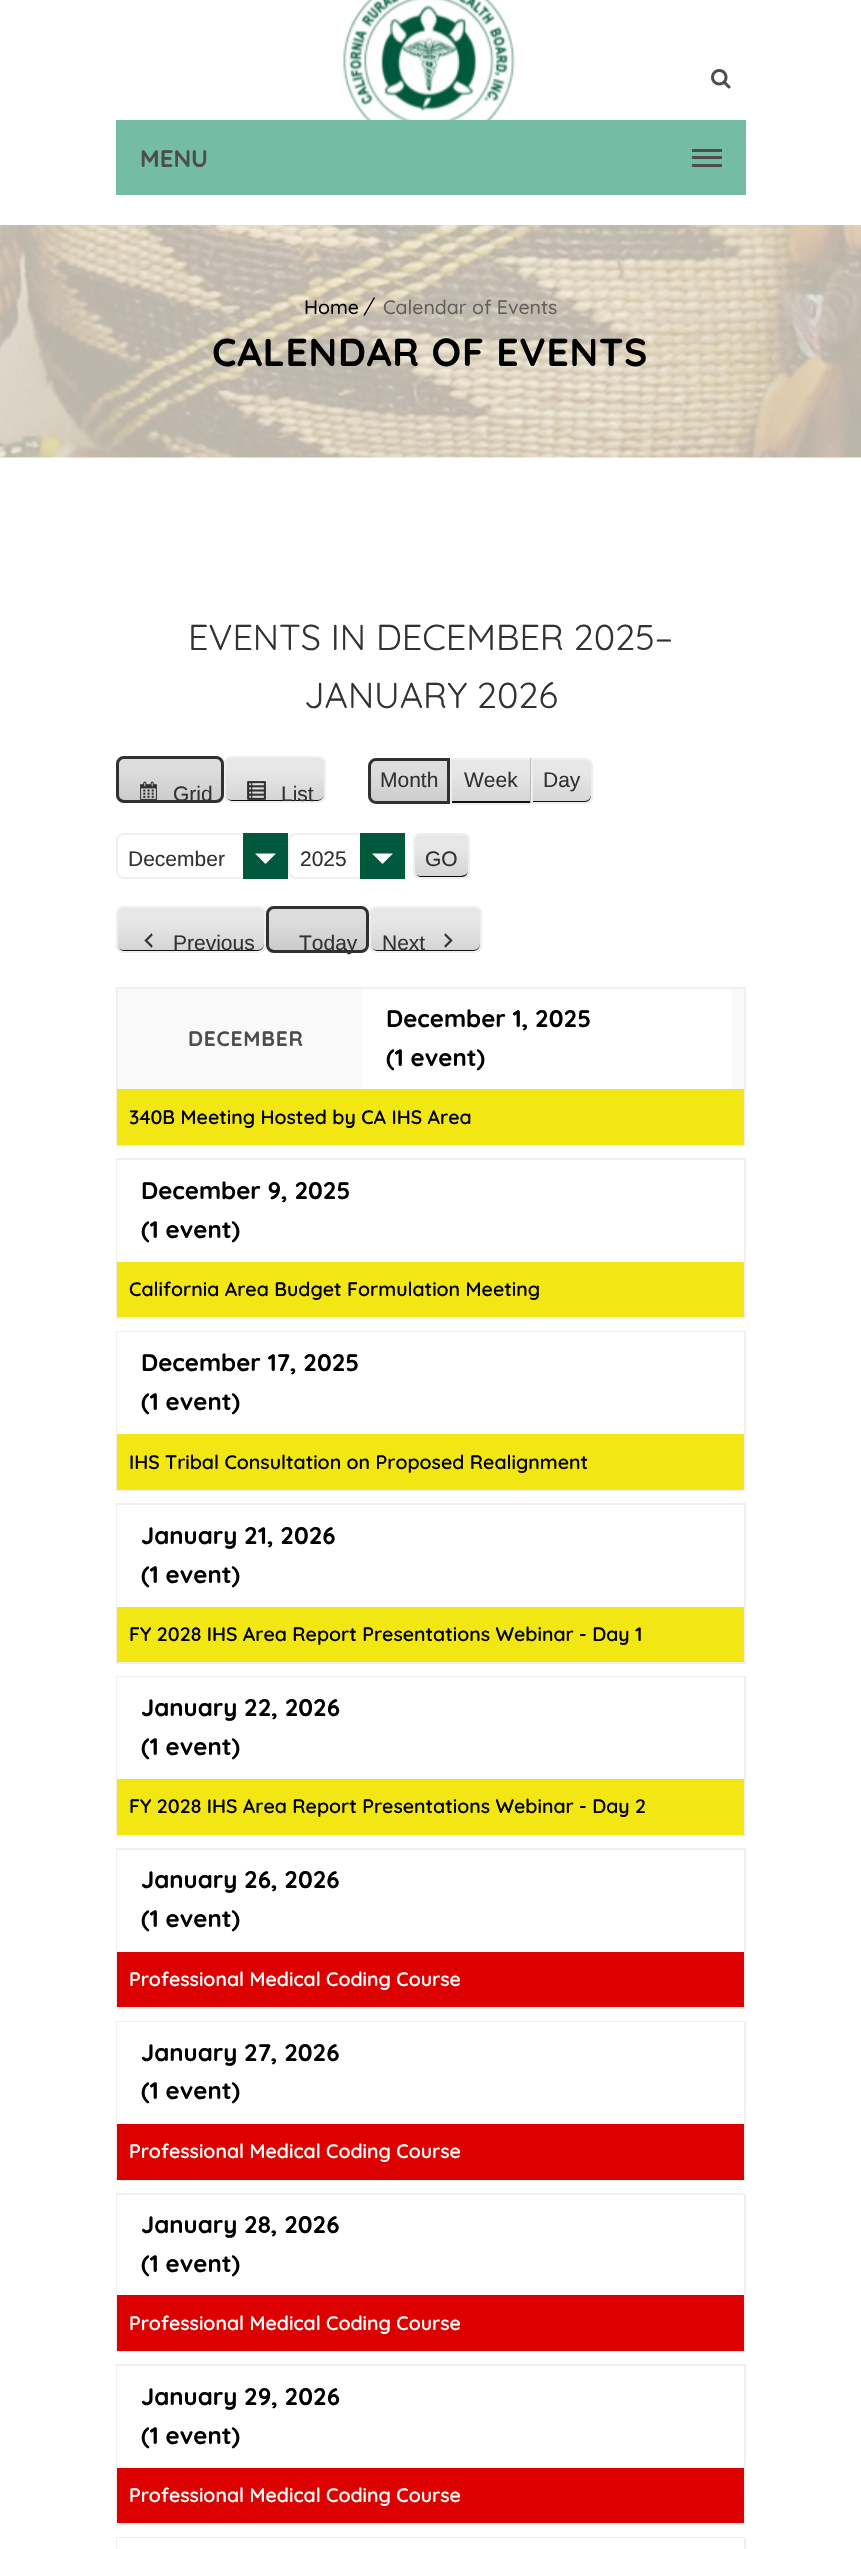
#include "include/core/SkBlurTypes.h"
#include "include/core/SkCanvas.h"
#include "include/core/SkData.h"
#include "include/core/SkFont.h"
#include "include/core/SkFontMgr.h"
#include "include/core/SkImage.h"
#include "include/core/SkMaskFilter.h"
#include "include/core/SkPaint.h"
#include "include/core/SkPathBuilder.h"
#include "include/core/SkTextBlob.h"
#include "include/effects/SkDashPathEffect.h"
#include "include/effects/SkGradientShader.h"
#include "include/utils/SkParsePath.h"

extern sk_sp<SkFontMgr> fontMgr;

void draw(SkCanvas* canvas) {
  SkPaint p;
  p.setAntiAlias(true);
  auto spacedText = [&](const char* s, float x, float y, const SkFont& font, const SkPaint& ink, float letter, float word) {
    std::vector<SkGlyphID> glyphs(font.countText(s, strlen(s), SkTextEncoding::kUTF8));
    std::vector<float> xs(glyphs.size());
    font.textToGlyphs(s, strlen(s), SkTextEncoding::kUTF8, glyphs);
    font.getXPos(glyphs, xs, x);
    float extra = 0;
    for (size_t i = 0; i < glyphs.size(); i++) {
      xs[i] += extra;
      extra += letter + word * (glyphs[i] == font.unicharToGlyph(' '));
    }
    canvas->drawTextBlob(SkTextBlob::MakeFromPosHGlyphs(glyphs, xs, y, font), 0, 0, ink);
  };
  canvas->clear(SK_ColorWHITE);
  canvas->drawImageRect(SkImages::DeferredFromEncodedData(SkData::MakeFromFileName("images/1.png")), SkRect::MakeLTRB(343, 0, 515, 120), SkSamplingOptions());
  canvas->drawImageRect(SkImages::DeferredFromEncodedData(SkData::MakeFromFileName("images/2.png")), SkRect::MakeLTRB(711, 69, 731, 89), SkSamplingOptions());
  p.setColor(SkColorSetRGB(116, 188, 164));
  canvas->drawRect(SkRect::MakeLTRB(116, 120, 746, 195), p);
  p.setColor(SkColorSetRGB(77, 77, 77));
  canvas->drawRect(SkRect::MakeLTRB(692, 156, 722, 159), p);
  canvas->drawRect(SkRect::MakeLTRB(692, 149, 722, 152), p);
  canvas->drawRect(SkRect::MakeLTRB(692, 164, 722, 167), p);
  canvas->drawImageRect(SkImages::DeferredFromEncodedData(SkData::MakeFromFileName("images/3.png")), SkRect::MakeLTRB(0, 225, 861, 458), SkSamplingOptions());
  p.setColor(SK_ColorBLACK);
  canvas->drawPath(SkPathBuilder().moveTo(374, 297).lineTo(375, 298).lineTo(364.5f, 316).lineTo(363.5f, 315).close().detach(), p);
  canvas->save();
  canvas->clipPath(SkPathBuilder().moveTo(124, 756).lineTo(216, 756).cubicTo(220.5f, 756, 224, 759.5f, 224, 764).lineTo(224, 795).cubicTo(224, 799.5f, 220.5f, 803, 216, 803).lineTo(124, 803).cubicTo(119.5f, 803, 116, 799.5f, 116, 795).lineTo(116, 764).cubicTo(116, 759.5f, 119.5f, 756, 124, 756).close().detach(), true);
  {
    const SkColor colors[] = {SkColorSetRGB(203, 203, 203), SkColorSetRGB(221, 221, 221)};
    const float stops[] = {0, 0.7f};
    const SkPoint ends[] = {{170, 801}, {170, 758}};
    p.setShader(SkGradientShader::MakeLinear(ends, colors, stops, 2, SkTileMode::kClamp));
    p.setAlpha(255);
  }
  canvas->drawRect(SkRect::MakeLTRB(116, 758, 224, 801), p);
  canvas->restore();
  p.setStyle(SkPaint::kStroke_Style);
  p.setStrokeWidth(2);
  p.setShader(nullptr);
  p.setColor(SkColorSetRGB(227, 227, 227));
  canvas->drawRoundRect(SkRect::MakeLTRB(117, 757, 223, 802), 7, 7, p);
  canvas->drawImageRect(SkImages::DeferredFromEncodedData(SkData::MakeFromFileName("images/4.png")), SkRect::MakeLTRB(140, 781, 157, 800), SkSamplingOptions());
  canvas->save();
  canvas->clipPath(SkPathBuilder().moveTo(232, 756).lineTo(318, 756).cubicTo(322.5f, 756, 326, 759.5f, 326, 764).lineTo(326, 795).cubicTo(326, 799.5f, 322.5f, 803, 318, 803).lineTo(232, 803).cubicTo(227.5f, 803, 224, 799.5f, 224, 795).lineTo(224, 764).cubicTo(224, 759.5f, 227.5f, 756, 232, 756).close().detach(), true);
  p.setStyle(SkPaint::kFill_Style);
  {
    const SkColor colors[] = {SkColorSetRGB(212, 212, 212), SkColorSetRGB(231, 231, 231)};
    const float stops[] = {0, 0.7f};
    const SkPoint ends[] = {{275, 801}, {275, 758}};
    p.setShader(SkGradientShader::MakeLinear(ends, colors, stops, 2, SkTileMode::kClamp));
    p.setAlpha(255);
  }
  canvas->drawRect(SkRect::MakeLTRB(224, 758, 326, 801), p);
  canvas->restore();
  p.setShader(nullptr);
  p.setColor(SkColorSetRGB(15, 15, 15));
  canvas->drawPath(SkPathBuilder().moveTo(225, 794).cubicTo(225, 804, 239, 801, 246, 801).lineTo(304, 801).cubicTo(310, 801, 324, 804, 324, 794).cubicTo(324, 797, 321, 800, 318, 800).lineTo(231, 800).cubicTo(228, 800, 225, 797, 225, 794).close().detach(), p);
  p.setStyle(SkPaint::kStroke_Style);
  p.setColor(SkColorSetRGB(239, 239, 239));
  canvas->drawRoundRect(SkRect::MakeLTRB(225, 757, 325, 802), 7, 7, p);
  canvas->drawImageRect(SkImages::DeferredFromEncodedData(SkData::MakeFromFileName("images/5.png")), SkRect::MakeLTRB(247, 781, 266, 800), SkSamplingOptions());
  canvas->save();
  canvas->clipPath(SkPathBuilder().moveTo(376, 758).lineTo(450, 758).lineTo(450, 804).lineTo(376, 804).cubicTo(371.5f, 804, 368, 800.5f, 368, 796).lineTo(368, 766).cubicTo(368, 761.5f, 371.5f, 758, 376, 758).close().detach(), true);
  p.setStyle(SkPaint::kFill_Style);
  {
    const SkColor colors[] = {SkColorSetRGB(203, 203, 203), SkColorSetRGB(221, 221, 221)};
    const float stops[] = {0, 0.7f};
    const SkPoint ends[] = {{409, 803}, {409, 759}};
    p.setShader(SkGradientShader::MakeLinear(ends, colors, stops, 2, SkTileMode::kClamp));
    p.setAlpha(255);
  }
  canvas->drawRect(SkRect::MakeLTRB(368, 759, 447, 803), p);
  canvas->restore();
  p.setShader(nullptr);
  p.setColor(SkColorSetRGB(227, 227, 227));
  canvas->drawPath(SkPathBuilder().moveTo(375, 758).cubicTo(373, 758, 371, 759, 370, 760).lineTo(371, 761).lineTo(374, 759).lineTo(448, 759).lineTo(448, 760).lineTo(450, 758).close().detach(), p);
  canvas->drawPath(SkPathBuilder().moveTo(450, 804).lineTo(448, 802).lineTo(375, 802).cubicTo(374, 802, 372, 802, 371, 801).lineTo(370, 802).cubicTo(371, 803, 373, 804, 375, 804).close().detach(), p);
  canvas->drawPath(SkPathBuilder().moveTo(370, 760).cubicTo(369, 761, 368, 763, 368, 765).lineTo(368, 796).cubicTo(368, 798, 369, 800, 370, 802).lineTo(371, 801).cubicTo(370, 800, 369, 798, 369, 796).lineTo(369, 765).cubicTo(369, 764, 370, 762, 371, 761).close().detach(), p);
  p.setStyle(SkPaint::kStroke_Style);
  p.setStrokeWidth(3);
  p.setColor(SkColorSetRGB(47, 48, 48));
  canvas->drawPath(SkPathBuilder().moveTo(376, 759.5f).lineTo(448.5f, 759.5f).lineTo(448.5f, 802.5f).lineTo(376, 802.5f).cubicTo(372.5f, 802.5f, 369.5f, 799.5f, 369.5f, 796).lineTo(369.5f, 766).cubicTo(369.5f, 762.5f, 372.5f, 759.5f, 376, 759.5f).close().detach(), p);
  p.setStyle(SkPaint::kFill_Style);
  {
    const SkColor colors[] = {SkColorSetRGB(212, 212, 212), SkColorSetRGB(231, 231, 231)};
    const float stops[] = {0, 0.7f};
    const SkPoint ends[] = {{491, 803}, {491, 759}};
    p.setShader(SkGradientShader::MakeLinear(ends, colors, stops, 2, SkTileMode::kClamp));
    p.setAlpha(255);
  }
  canvas->drawRect(SkRect::MakeLTRB(452, 760, 530, 801), p);
  p.setShader(nullptr);
  p.setColor(SkColorSetRGB(15, 15, 15));
  canvas->drawRect(SkRect::MakeLTRB(452, 801, 530, 803), p);
  p.setColor(SkColorSetRGB(239, 239, 239));
  canvas->drawRect(SkRect::MakeLTRB(450, 758, 531, 760), p);
  p.setColor(SkColorSetRGB(187, 187, 187));
  canvas->drawRect(SkRect::MakeLTRB(530, 758, 531, 804), p);
  p.setColor(SkColorSetRGB(239, 239, 239));
  canvas->drawRect(SkRect::MakeLTRB(450, 803, 531, 805), p);
  canvas->drawRect(SkRect::MakeLTRB(450, 758, 452, 804), p);
  canvas->save();
  canvas->clipPath(SkPathBuilder().moveTo(531, 758).lineTo(585, 758).cubicTo(589.5f, 758, 593, 761.5f, 593, 766).lineTo(593, 796).cubicTo(593, 800.5f, 589.5f, 804, 585, 804).lineTo(531, 804).close().detach(), true);
  {
    const SkColor colors[] = {SkColorSetARGB(242, 210, 210, 210), SkColorSetARGB(242, 230, 230, 230)};
    const float stops[] = {0, 0.7f};
    const SkPoint ends[] = {{562, 803}, {562, 759}};
    p.setShader(SkGradientShader::MakeLinear(ends, colors, stops, 2, SkTileMode::kClamp));
    p.setAlpha(255);
  }
  canvas->drawRect(SkRect::MakeLTRB(533, 759, 593, 803), p);
  canvas->restore();
  p.setShader(nullptr);
  p.setColor(SkColorSetRGB(15, 15, 15));
  canvas->drawPath(SkPathBuilder().moveTo(533, 801).lineTo(533, 803).lineTo(585, 803).cubicTo(588, 803, 591, 800, 591, 797).lineTo(591, 795).cubicTo(591, 798, 588, 801, 585, 801).close().detach(), p);
  p.setStyle(SkPaint::kStroke_Style);
  p.setStrokeWidth(2);
  p.setColor(SkColorSetRGB(239, 239, 239));
  canvas->drawPath(SkPathBuilder().moveTo(532, 759).lineTo(585, 759).cubicTo(589, 759, 592, 762, 592, 766).lineTo(592, 796).cubicTo(592, 800, 589, 803, 585, 803).lineTo(532, 803).close().detach(), p);
  canvas->drawRoundRect(SkRect::MakeLTRB(117, 834, 287, 878), 7, 7, p);
  p.setStyle(SkPaint::kFill_Style);
  p.setColor(SkColorSetRGB(0, 88, 61));
  canvas->drawRect(SkRect::MakeLTRB(243, 833, 288, 879), p);
  p.setColor(SK_ColorWHITE);
  canvas->drawPath(SkPathBuilder().moveTo(255, 853.5f).lineTo(276, 853.5f).lineTo(265.5f, 864).close().detach(), p);
  p.setStyle(SkPaint::kStroke_Style);
  p.setColor(SkColorSetRGB(239, 239, 239));
  canvas->drawRoundRect(SkRect::MakeLTRB(289, 834, 404, 878), 7, 7, p);
  p.setStyle(SkPaint::kFill_Style);
  p.setColor(SkColorSetRGB(0, 88, 61));
  canvas->drawRect(SkRect::MakeLTRB(360, 833, 405, 879), p);
  p.setColor(SK_ColorWHITE);
  canvas->drawPath(SkPathBuilder().moveTo(372, 853.5f).lineTo(393, 853.5f).lineTo(382.5f, 864).close().detach(), p);
  canvas->save();
  canvas->clipPath(SkPathBuilder().moveTo(421, 833).lineTo(462, 833).cubicTo(466.5f, 833, 470, 836.5f, 470, 841).lineTo(470, 871).cubicTo(470, 875.5f, 466.5f, 879, 462, 879).lineTo(421, 879).cubicTo(416.5f, 879, 413, 875.5f, 413, 871).lineTo(413, 841).cubicTo(413, 836.5f, 416.5f, 833, 421, 833).close().detach(), true);
  {
    const SkColor colors[] = {SkColorSetRGB(212, 212, 212), SkColorSetRGB(231, 231, 231)};
    const float stops[] = {0, 0.7f};
    const SkPoint ends[] = {{441, 878}, {441, 834}};
    p.setShader(SkGradientShader::MakeLinear(ends, colors, stops, 2, SkTileMode::kClamp));
    p.setAlpha(255);
  }
  canvas->drawRect(SkRect::MakeLTRB(413, 834, 470, 878), p);
  canvas->restore();
  p.setShader(nullptr);
  p.setColor(SkColorSetRGB(15, 15, 15));
  canvas->drawPath(SkPathBuilder().moveTo(414, 865).cubicTo(414, 877, 414, 878, 427, 878).lineTo(455, 878).cubicTo(462, 878, 468, 879, 468, 871).cubicTo(468, 872, 467, 874, 465, 875).lineTo(461, 876).lineTo(420, 876).lineTo(416, 875).cubicTo(414, 873, 414, 868, 414, 865).close().detach(), p);
  p.setStyle(SkPaint::kStroke_Style);
  p.setColor(SkColorSetRGB(239, 239, 239));
  canvas->drawRoundRect(SkRect::MakeLTRB(414, 834, 469, 878), 7, 7, p);
  canvas->save();
  canvas->clipPath(SkPathBuilder().moveTo(124, 906).lineTo(258, 906).cubicTo(262.5f, 906, 266, 909.5f, 266, 914).lineTo(266, 945).cubicTo(266, 949.5f, 262.5f, 953, 258, 953).lineTo(124, 953).cubicTo(119.5f, 953, 116, 949.5f, 116, 945).lineTo(116, 914).cubicTo(116, 909.5f, 119.5f, 906, 124, 906).close().detach(), true);
  p.setStyle(SkPaint::kFill_Style);
  {
    const SkColor colors[] = {SkColorSetRGB(212, 212, 212), SkColorSetRGB(231, 231, 231)};
    const float stops[] = {0, 0.7f};
    const SkPoint ends[] = {{191, 951}, {191, 908}};
    p.setShader(SkGradientShader::MakeLinear(ends, colors, stops, 2, SkTileMode::kClamp));
    p.setAlpha(255);
  }
  canvas->drawRect(SkRect::MakeLTRB(116, 908, 266, 951), p);
  canvas->restore();
  p.setShader(nullptr);
  p.setColor(SkColorSetRGB(15, 15, 15));
  canvas->drawPath(SkPathBuilder().moveTo(117, 944).lineTo(117, 945).cubicTo(117, 948, 120, 951, 123, 951).lineTo(258, 951).cubicTo(261, 951, 264, 948, 264, 945).lineTo(264, 944).cubicTo(264, 947, 261, 950, 258, 950).lineTo(123, 950).cubicTo(120, 950, 117, 947, 117, 944).close().detach(), p);
  p.setStyle(SkPaint::kStroke_Style);
  p.setColor(SkColorSetRGB(239, 239, 239));
  canvas->drawRoundRect(SkRect::MakeLTRB(117, 907, 265, 952), 7, 7, p);
  canvas->drawImageRect(SkImages::DeferredFromEncodedData(SkData::MakeFromFileName("images/6.png")), SkRect::MakeLTRB(144, 933, 153, 948), SkSamplingOptions());
  canvas->save();
  canvas->clipPath(SkPathBuilder().moveTo(274, 906).lineTo(361, 906).cubicTo(365.5f, 906, 369, 909.5f, 369, 914).lineTo(369, 945).cubicTo(369, 949.5f, 365.5f, 953, 361, 953).lineTo(274, 953).cubicTo(269.5f, 953, 266, 949.5f, 266, 945).lineTo(266, 914).cubicTo(266, 909.5f, 269.5f, 906, 274, 906).close().detach(), true);
  p.setStyle(SkPaint::kFill_Style);
  {
    const SkColor colors[] = {SkColorSetRGB(203, 203, 203), SkColorSetRGB(221, 221, 221)};
    const float stops[] = {0, 0.7f};
    const SkPoint ends[] = {{317, 951}, {317, 908}};
    p.setShader(SkGradientShader::MakeLinear(ends, colors, stops, 2, SkTileMode::kClamp));
    p.setAlpha(255);
  }
  canvas->drawRect(SkRect::MakeLTRB(266, 908, 369, 951), p);
  canvas->restore();
  p.setStyle(SkPaint::kStroke_Style);
  p.setShader(nullptr);
  p.setColor(SkColorSetRGB(227, 227, 227));
  canvas->drawRoundRect(SkRect::MakeLTRB(267, 907, 368, 952), 7, 7, p);
  canvas->save();
  canvas->clipPath(SkPathBuilder().moveTo(377, 906).lineTo(474, 906).cubicTo(478.5f, 906, 482, 909.5f, 482, 914).lineTo(482, 945).cubicTo(482, 949.5f, 478.5f, 953, 474, 953).lineTo(377, 953).cubicTo(372.5f, 953, 369, 949.5f, 369, 945).lineTo(369, 914).cubicTo(369, 909.5f, 372.5f, 906, 377, 906).close().detach(), true);
  p.setStyle(SkPaint::kFill_Style);
  {
    const SkColor colors[] = {SkColorSetRGB(212, 212, 212), SkColorSetRGB(231, 231, 231)};
    const float stops[] = {0, 0.7f};
    const SkPoint ends[] = {{425, 951}, {425, 908}};
    p.setShader(SkGradientShader::MakeLinear(ends, colors, stops, 2, SkTileMode::kClamp));
    p.setAlpha(255);
  }
  canvas->drawRect(SkRect::MakeLTRB(369, 908, 482, 951), p);
  canvas->restore();
  p.setShader(nullptr);
  p.setColor(SkColorSetRGB(15, 15, 15));
  canvas->drawPath(SkPathBuilder().moveTo(372, 948).cubicTo(373, 950, 375, 951, 377, 951).lineTo(474, 951).cubicTo(477, 951, 480, 948, 480, 945).lineTo(480, 944).cubicTo(480, 947, 477, 950, 474, 950).lineTo(376, 950).cubicTo(375, 950, 373, 949, 372, 948).close().detach(), p);
  p.setStyle(SkPaint::kStroke_Style);
  p.setColor(SkColorSetRGB(239, 239, 239));
  canvas->drawRoundRect(SkRect::MakeLTRB(370, 907, 481, 952), 7, 7, p);
  canvas->drawImageRect(SkImages::DeferredFromEncodedData(SkData::MakeFromFileName("images/7.png")), SkRect::MakeLTRB(444, 933, 453, 948), SkSamplingOptions());
  p.setStyle(SkPaint::kFill_Style);
  p.setColor(SkColorSetRGB(249, 249, 249));
  canvas->drawRect(SkRect::MakeLTRB(118, 989, 744, 1089), p);
  p.setStyle(SkPaint::kStroke_Style);
  p.setColor(SkColorSetRGB(239, 239, 239));
  canvas->drawRect(SkRect::MakeLTRB(117, 988, 745, 1145), p);
  p.setStyle(SkPaint::kFill_Style);
  p.setColor(SK_ColorWHITE);
  canvas->drawRect(SkRect::MakeLTRB(362, 989, 732, 1089), p);
  p.setColor(SkColorSetRGB(242, 231, 19));
  canvas->drawRect(SkRect::MakeLTRB(117, 1089, 744, 1145), p);
  p.setStyle(SkPaint::kStroke_Style);
  p.setColor(SkColorSetRGB(239, 239, 239));
  canvas->drawRect(SkRect::MakeLTRB(117, 1159, 745, 1318), p);
  p.setStyle(SkPaint::kFill_Style);
  p.setColor(SK_ColorWHITE);
  canvas->drawRect(SkRect::MakeLTRB(117, 1160, 118, 1262), p);
  p.setColor(SkColorSetRGB(242, 231, 19));
  canvas->drawRect(SkRect::MakeLTRB(117, 1262, 744, 1317), p);
  p.setStyle(SkPaint::kStroke_Style);
  p.setColor(SkColorSetRGB(239, 239, 239));
  canvas->drawRect(SkRect::MakeLTRB(117, 1332, 745, 1490), p);
  p.setStyle(SkPaint::kFill_Style);
  p.setColor(SK_ColorWHITE);
  canvas->drawRect(SkRect::MakeLTRB(117, 1332, 744, 1434), p);
  p.setColor(SkColorSetRGB(242, 231, 19));
  canvas->drawRect(SkRect::MakeLTRB(117, 1434, 744, 1490), p);
  p.setStyle(SkPaint::kStroke_Style);
  p.setColor(SkColorSetRGB(239, 239, 239));
  canvas->drawRect(SkRect::MakeLTRB(117, 1504, 745, 1663), p);
  p.setStyle(SkPaint::kFill_Style);
  p.setColor(SK_ColorWHITE);
  canvas->drawRect(SkRect::MakeLTRB(117, 1505, 118, 1607), p);
  p.setColor(SkColorSetRGB(242, 231, 19));
  canvas->drawRect(SkRect::MakeLTRB(117, 1607, 744, 1662), p);
  p.setStyle(SkPaint::kStroke_Style);
  p.setColor(SkColorSetRGB(239, 239, 239));
  canvas->drawRect(SkRect::MakeLTRB(117, 1677, 745, 1835), p);
  p.setStyle(SkPaint::kFill_Style);
  p.setColor(SK_ColorWHITE);
  canvas->drawRect(SkRect::MakeLTRB(117, 1677, 744, 1779), p);
  p.setColor(SkColorSetRGB(242, 231, 19));
  canvas->drawRect(SkRect::MakeLTRB(117, 1779, 744, 1835), p);
  p.setStyle(SkPaint::kStroke_Style);
  p.setColor(SkColorSetRGB(239, 239, 239));
  canvas->drawRect(SkRect::MakeLTRB(117, 1849, 745, 2008), p);
  p.setStyle(SkPaint::kFill_Style);
  p.setColor(SK_ColorWHITE);
  canvas->drawRect(SkRect::MakeLTRB(117, 1850, 118, 1952), p);
  p.setColor(SkColorSetRGB(221, 0, 0));
  canvas->drawRect(SkRect::MakeLTRB(117, 1952, 744, 2007), p);
  p.setStyle(SkPaint::kStroke_Style);
  p.setColor(SkColorSetRGB(239, 239, 239));
  canvas->drawRect(SkRect::MakeLTRB(117, 2022, 745, 2180), p);
  p.setStyle(SkPaint::kFill_Style);
  p.setColor(SK_ColorWHITE);
  canvas->drawRect(SkRect::MakeLTRB(117, 2022, 744, 2124), p);
  p.setColor(SkColorSetRGB(221, 0, 0));
  canvas->drawRect(SkRect::MakeLTRB(117, 2124, 744, 2180), p);
  p.setStyle(SkPaint::kStroke_Style);
  p.setColor(SkColorSetRGB(239, 239, 239));
  canvas->drawRect(SkRect::MakeLTRB(117, 2194, 745, 2351), p);
  p.setStyle(SkPaint::kFill_Style);
  p.setColor(SK_ColorWHITE);
  canvas->drawRect(SkRect::MakeLTRB(117, 2195, 118, 2295), p);
  p.setColor(SkColorSetRGB(221, 0, 0));
  canvas->drawRect(SkRect::MakeLTRB(117, 2295, 744, 2351), p);
  p.setStyle(SkPaint::kStroke_Style);
  p.setColor(SkColorSetRGB(239, 239, 239));
  canvas->drawRect(SkRect::MakeLTRB(117, 2365, 745, 2524), p);
  p.setStyle(SkPaint::kFill_Style);
  p.setColor(SK_ColorWHITE);
  canvas->drawRect(SkRect::MakeLTRB(117, 2366, 118, 2468), p);
  p.setColor(SkColorSetRGB(221, 0, 0));
  canvas->drawRect(SkRect::MakeLTRB(117, 2468, 744, 2523), p);
  p.setStyle(SkPaint::kStroke_Style);
  p.setColor(SkColorSetRGB(239, 239, 239));
  canvas->drawRect(SkRect::MakeLTRB(117, 2538, 745, 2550), p);
  p.setStyle(SkPaint::kFill_Style);
  p.setColor(SK_ColorWHITE);
  canvas->drawRect(SkRect::MakeLTRB(117, 2538, 744, 2549), p);
  SkFont font1(fontMgr->matchFamilyStyle("Quicksand", SkFontStyle::Bold()), 24);
  font1.setSubpixel(true);
  p.setColor(SkColorSetRGB(77, 77, 77));
  canvas->drawString("MENU", 140, 167, font1, p);
  SkFont font2(fontMgr->matchFamilyStyle("Quicksand", SkFontStyle(500, SkFontStyle::kNormal_Width, SkFontStyle::kUpright_Slant)), 19.5f);
  font2.setSubpixel(true);
  p.setColor(SK_ColorBLACK);
  canvas->drawString("Home", 304, 314, font2, p);
  p.setColor(SkColorSetRGB(98, 95, 89));
  canvas->drawString("Calendar of Events", 383, 314, font2, p);
  SkFont font3(fontMgr->matchFamilyStyle("Quicksand", SkFontStyle::Bold()), 39);
  font3.setSubpixel(true);
  p.setColor(SK_ColorBLACK);
  spacedText("CALENDAR OF EVENTS", 212, 366, font3, p, 0.75f, 0);
  SkFont font4(fontMgr->matchFamilyStyle("Quicksand", SkFontStyle::Normal()), 36);
  font4.setSubpixel(true);
  p.setColor(SkColorSetRGB(49, 50, 51));
  canvas->drawString("EVENTS IN DECEMBER 2025–", 188, 650, font4, p);
  canvas->drawString("JANUARY 2026", 304, 708, font4, p);
  SkFont font5(fontMgr->matchFamilyStyle("Liberation Sans", SkFontStyle::Normal()), 21);
  font5.setSubpixel(true);
  canvas->drawString("Grid", 173, 801, font5, p);
  p.setStyle(SkPaint::kStroke_Style);
  p.setStrokeWidth(3);
  p.setColor(SkColorSetRGB(47, 48, 48));
  canvas->drawRoundRect(SkRect::MakeLTRB(117.5f, 757.5f, 222.5f, 801.5f), 6.5f, 6.5f, p);
  p.setStyle(SkPaint::kFill_Style);
  p.setColor(SkColorSetRGB(49, 50, 51));
  canvas->drawString("List", 281, 801, font5, p);
  canvas->drawString("Month", 380, 787, font5, p);
  canvas->drawString("Week", 464, 787, font5, p);
  canvas->drawString("Day", 543, 787, font5, p);
  canvas->drawString("December", 128, 866, font5, p);
  canvas->drawString("2025", 300, 866, font5, p);
  canvas->drawString("GO", 425, 866, font5, p);
  canvas->drawString("Previous", 173, 950, font5, p);
  canvas->drawString("Today", 299, 950, font5, p);
  p.setStyle(SkPaint::kStroke_Style);
  p.setColor(SkColorSetRGB(47, 48, 48));
  canvas->drawRoundRect(SkRect::MakeLTRB(267.5f, 907.5f, 367.5f, 951.5f), 6.5f, 6.5f, p);
  p.setStyle(SkPaint::kFill_Style);
  p.setColor(SkColorSetRGB(49, 50, 51));
  canvas->drawString("Next", 382, 950, font5, p);
  SkFont font6(fontMgr->matchFamilyStyle("Quicksand", SkFontStyle::Bold()), 21);
  font6.setSubpixel(true);
  p.setColor(SkColorSetRGB(77, 77, 77));
  spacedText("DECEMBER", 188, 1046, font6, p, 0.75f, 0);
  p.setColor(SK_ColorBLACK);
  canvas->drawString("December 1, 2025", 386, 1027, font1, p);
  canvas->drawString("(1 event)", 386, 1066, font1, p);
  SkFont font7(fontMgr->matchFamilyStyle("Quicksand", SkFontStyle(600, SkFontStyle::kNormal_Width, SkFontStyle::kUpright_Slant)), 19.5f);
  font7.setSubpixel(true);
  canvas->drawString("340B Meeting Hosted by CA IHS Area", 129, 1124, font7, p);
  canvas->drawString("December 9, 2025", 141, 1199, font1, p);
  canvas->drawString("(1 event)", 141, 1238, font1, p);
  canvas->drawString("California Area Budget Formulation Meeting", 129, 1296, font7, p);
  canvas->drawString("December 17, 2025", 141, 1371, font1, p);
  canvas->drawString("(1 event)", 141, 1410, font1, p);
  canvas->drawString("IHS Tribal Consultation on Proposed Realignment", 129, 1469, font7, p);
  canvas->drawString("January 21, 2026", 141, 1544, font1, p);
  canvas->drawString("(1 event)", 141, 1583, font1, p);
  canvas->drawString("FY 2028 IHS Area Report Presentations Webinar - Day 1", 129, 1641, font7, p);
  canvas->drawString("January 22, 2026", 141, 1716, font1, p);
  canvas->drawString("(1 event)", 141, 1755, font1, p);
  canvas->drawString("FY 2028 IHS Area Report Presentations Webinar - Day 2", 129, 1813, font7, p);
  canvas->drawString("January 26, 2026", 141, 1888, font1, p);
  canvas->drawString("(1 event)", 141, 1927, font1, p);
  p.setColor(SK_ColorWHITE);
  canvas->drawString("Professional Medical Coding Course", 129, 1986, font7, p);
  p.setColor(SK_ColorBLACK);
  canvas->drawString("January 27, 2026", 141, 2061, font1, p);
  canvas->drawString("(1 event)", 141, 2099, font1, p);
  p.setColor(SK_ColorWHITE);
  canvas->drawString("Professional Medical Coding Course", 129, 2158, font7, p);
  p.setColor(SK_ColorBLACK);
  canvas->drawString("January 28, 2026", 141, 2233, font1, p);
  canvas->drawString("(1 event)", 141, 2272, font1, p);
  p.setColor(SK_ColorWHITE);
  canvas->drawString("Professional Medical Coding Course", 129, 2330, font7, p);
  p.setColor(SK_ColorBLACK);
  canvas->drawString("January 29, 2026", 141, 2405, font1, p);
  canvas->drawString("(1 event)", 141, 2444, font1, p);
  p.setColor(SK_ColorWHITE);
  canvas->drawString("Professional Medical Coding Course", 129, 2502, font7, p);
}
